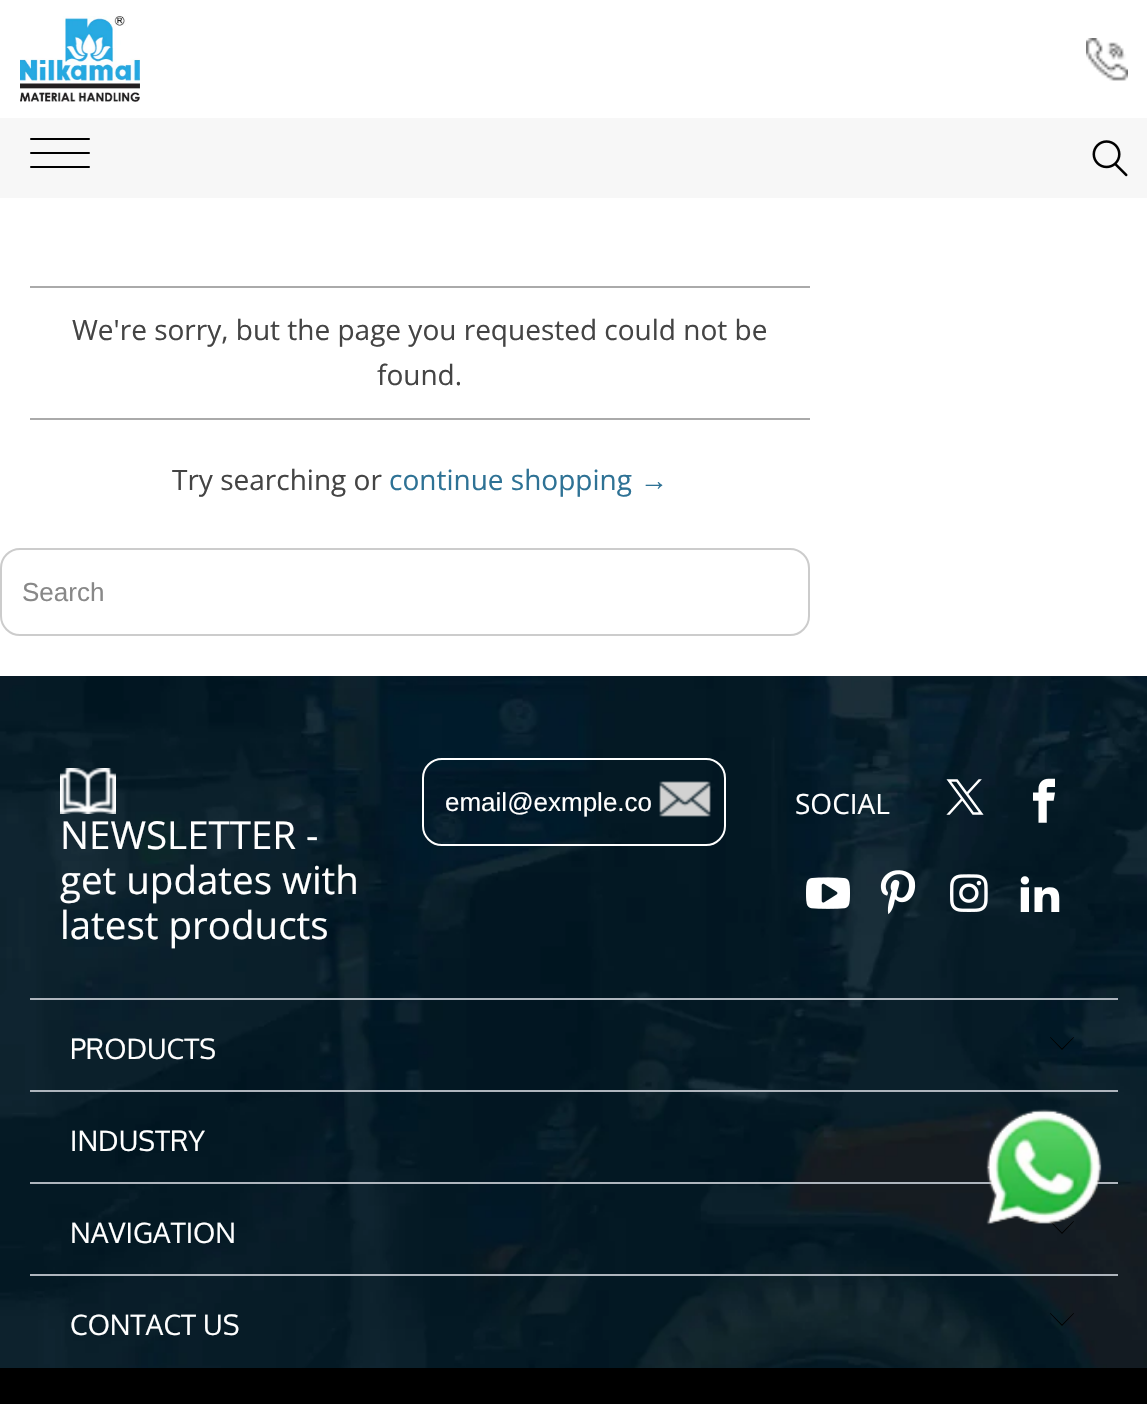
#include "include/core/SkBlurTypes.h"
#include "include/core/SkCanvas.h"
#include "include/core/SkData.h"
#include "include/core/SkFont.h"
#include "include/core/SkFontMgr.h"
#include "include/core/SkImage.h"
#include "include/core/SkMaskFilter.h"
#include "include/core/SkPaint.h"
#include "include/core/SkPathBuilder.h"
#include "include/core/SkTextBlob.h"
#include "include/effects/SkDashPathEffect.h"
#include "include/effects/SkGradientShader.h"
#include "include/utils/SkParsePath.h"

extern sk_sp<SkFontMgr> fontMgr;

void draw(SkCanvas* canvas) {
  SkPaint p;
  p.setAntiAlias(true);
  canvas->clear(SK_ColorWHITE);
  canvas->drawImageRect(SkImages::DeferredFromEncodedData(SkData::MakeFromFileName("images/1.png")), SkRect::MakeLTRB(20, 16, 140, 102), SkSamplingOptions());
  canvas->drawImageRect(SkImages::DeferredFromEncodedData(SkData::MakeFromFileName("images/2.png")), SkRect::MakeLTRB(1086, 38, 1128, 81), SkSamplingOptions());
  p.setColor(SkColorSetRGB(247, 247, 247));
  canvas->drawRect(SkRect::MakeLTRB(0, 118, 1147, 198), p);
  p.setColor(SK_ColorBLACK);
  canvas->drawRoundRect(SkRect::MakeLTRB(30, 138, 90, 140), 1, 1, p);
  canvas->drawRoundRect(SkRect::MakeLTRB(30, 152, 90, 154), 1, 1, p);
  canvas->drawRoundRect(SkRect::MakeLTRB(30, 166, 90, 168), 1, 1, p);
  canvas->drawImageRect(SkImages::DeferredFromEncodedData(SkData::MakeFromFileName("images/3.png")), SkRect::MakeLTRB(1092, 140, 1128, 177), SkSamplingOptions());
  p.setColor(SkColorSetRGB(170, 170, 170));
  canvas->drawRect(SkRect::MakeLTRB(30, 286, 810, 288), p);
  canvas->drawRect(SkRect::MakeLTRB(30, 418, 810, 420), p);
  p.setStyle(SkPaint::kStroke_Style);
  p.setStrokeWidth(2);
  p.setColor(SkColorSetRGB(204, 204, 204));
  canvas->drawRoundRect(SkRect::MakeLTRB(1, 549, 809, 635), 19, 19, p);
  canvas->drawImageRect(SkImages::DeferredFromEncodedData(SkData::MakeFromFileName("images/4.png")), SkRect::MakeLTRB(0, 676, 1147, 1368), SkSamplingOptions());
  p.setColor(SK_ColorWHITE);
  canvas->drawRoundRect(SkRect::MakeLTRB(423, 759, 725, 845), 19, 19, p);
  canvas->drawImageRect(SkImages::DeferredFromEncodedData(SkData::MakeFromFileName("images/5.png")), SkRect::MakeLTRB(659, 781, 711, 817), SkSamplingOptions());
  canvas->drawImageRect(SkImages::DeferredFromEncodedData(SkData::MakeFromFileName("images/6.png")), SkRect::MakeLTRB(946, 779, 984, 815), SkSamplingOptions());
  canvas->drawImageRect(SkImages::DeferredFromEncodedData(SkData::MakeFromFileName("images/7.png")), SkRect::MakeLTRB(1033, 778, 1055, 823), SkSamplingOptions());
  canvas->drawImageRect(SkImages::DeferredFromEncodedData(SkData::MakeFromFileName("images/8.png")), SkRect::MakeLTRB(806, 877, 850, 909), SkSamplingOptions());
  canvas->drawImageRect(SkImages::DeferredFromEncodedData(SkData::MakeFromFileName("images/9.png")), SkRect::MakeLTRB(880, 870, 916, 915), SkSamplingOptions());
  canvas->drawImageRect(SkImages::DeferredFromEncodedData(SkData::MakeFromFileName("images/10.png")), SkRect::MakeLTRB(950, 874, 988, 912), SkSamplingOptions());
  canvas->drawImageRect(SkImages::DeferredFromEncodedData(SkData::MakeFromFileName("images/11.png")), SkRect::MakeLTRB(1020, 876, 1060, 912), SkSamplingOptions());
  canvas->drawImageRect(SkImages::DeferredFromEncodedData(SkData::MakeFromFileName("images/12.png")), SkRect::MakeLTRB(60, 768, 116, 814), SkSamplingOptions());
  p.setStyle(SkPaint::kFill_Style);
  p.setColor(SkColorSetRGB(174, 181, 189));
  canvas->drawRect(SkRect::MakeLTRB(30, 998, 1118, 1000), p);
  p.setColor(SK_ColorBLACK);
  canvas->drawPath(SkPathBuilder().moveTo(1062, 1050).lineTo(1050, 1037.5f).lineTo(1050.5f, 1037).lineTo(1062, 1048.5f).lineTo(1073.5f, 1037).lineTo(1074, 1037.5f).close().detach(), p);
  p.setColor(SkColorSetRGB(174, 181, 189));
  canvas->drawRect(SkRect::MakeLTRB(30, 1090, 1118, 1092), p);
  canvas->drawRect(SkRect::MakeLTRB(30, 1182, 1118, 1184), p);
  p.setColor(SK_ColorBLACK);
  canvas->drawPath(SkPathBuilder().moveTo(1062, 1234).lineTo(1050, 1221.5f).lineTo(1050.5f, 1221).lineTo(1062, 1232.5f).lineTo(1073.5f, 1221).lineTo(1074, 1221.5f).close().detach(), p);
  p.setColor(SkColorSetRGB(174, 181, 189));
  canvas->drawRect(SkRect::MakeLTRB(30, 1274, 1118, 1276), p);
  p.setColor(SK_ColorBLACK);
  canvas->drawPath(SkPathBuilder().moveTo(1062, 1326).lineTo(1050, 1313.5f).lineTo(1050.5f, 1313).lineTo(1062, 1324.5f).lineTo(1073.5f, 1313).lineTo(1074, 1313.5f).close().detach(), p);
  canvas->drawRect(SkRect::MakeLTRB(0, 1368, 1147, 1404), p);
  canvas->drawImageRect(SkImages::DeferredFromEncodedData(SkData::MakeFromFileName("images/13.png")), SkRect::MakeLTRB(986, 1109, 1102, 1225), SkSamplingOptions());
  SkFont font1(fontMgr->matchFamilyStyle("Open Sans", SkFontStyle::Normal()), 28);
  font1.setSubpixel(true);
  p.setColor(SkColorSetRGB(68, 68, 68));
  canvas->drawString("We're sorry, but the page you requested could not be", 72, 340, font1, p);
  canvas->drawString("found.", 377, 385, font1, p);
  canvas->drawString("Try searching or", 172, 490, font1, p);
  p.setColor(SkColorSetRGB(46, 114, 149));
  canvas->drawString("continue shopping", 389, 490, font1, p);
  SkFont font2(fontMgr->matchFamilyStyle("Liberation Sans", SkFontStyle::Normal()), 28);
  font2.setSubpixel(true);
  canvas->drawString("→", 640, 490, font2, p);
  SkFont font3(fontMgr->matchFamilyStyle("Liberation Sans", SkFontStyle::Normal()), 26);
  font3.setSubpixel(true);
  p.setColor(SkColorSetRGB(136, 136, 136));
  canvas->drawString("Search", 22, 601, font3, p);
  p.setColor(SK_ColorWHITE);
  canvas->drawString("email@exmple.co", 445, 811, font3, p);
  canvas->drawString("SOCIAL", 795, 814, font1, p);
  SkFont font4(fontMgr->matchFamilyStyle("Open Sans", SkFontStyle::Normal()), 38.5f);
  font4.setSubpixel(true);
  canvas->drawString("NEWSLETTER -", 60, 849, font4, p);
  canvas->drawString("get updates with", 60, 894, font4, p);
  canvas->drawString("latest products", 60, 939, font4, p);
  SkFont font5(fontMgr->matchFamilyStyle("Oxygen", SkFontStyle::Normal()), 28);
  font5.setSubpixel(true);
  canvas->drawString("PRODUCTS", 70, 1059, font5, p);
  canvas->drawString("INDUSTRY", 70, 1151, font5, p);
  canvas->drawString("NAVIGATION", 70, 1243, font5, p);
  canvas->drawString("CONTACT US", 70, 1335, font5, p);
}
